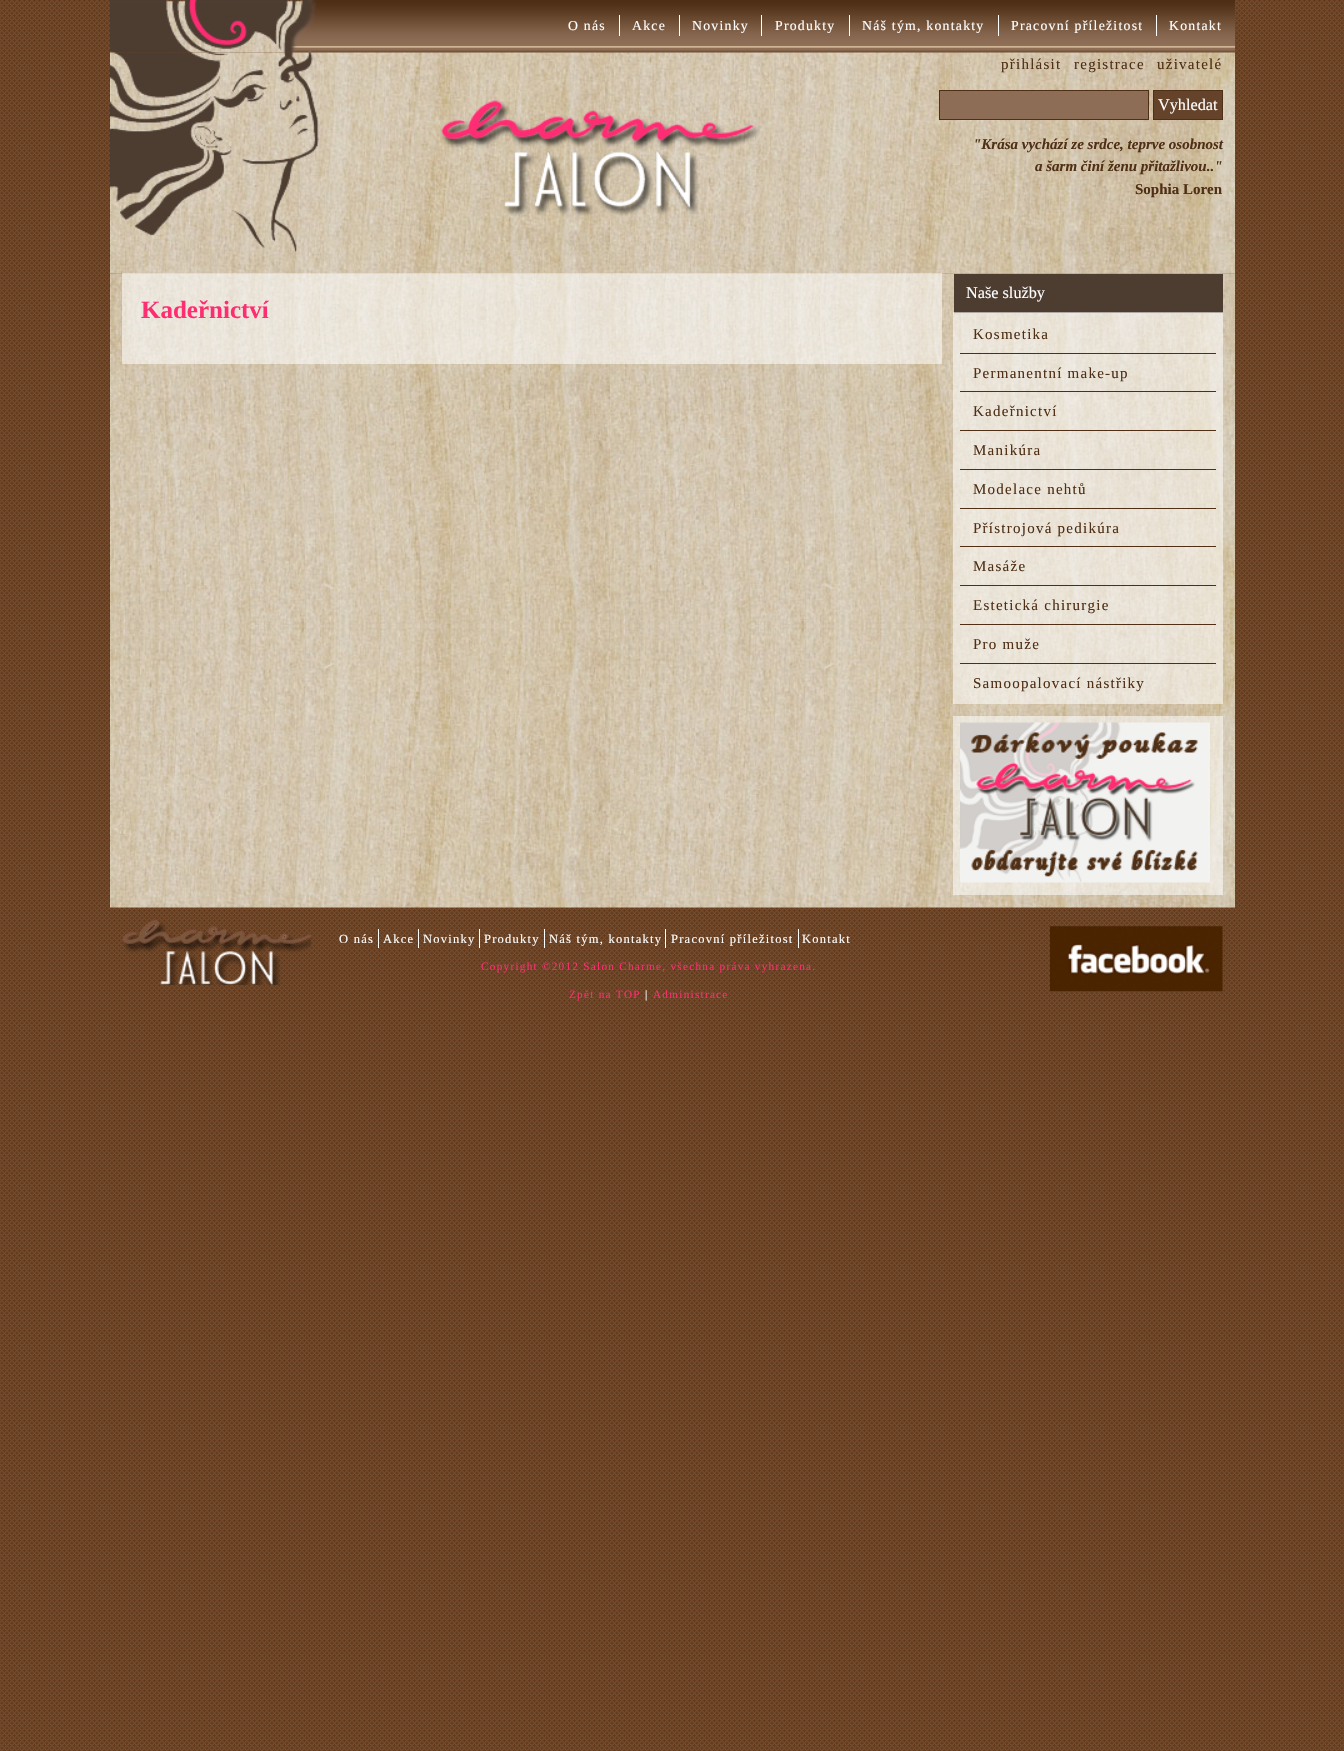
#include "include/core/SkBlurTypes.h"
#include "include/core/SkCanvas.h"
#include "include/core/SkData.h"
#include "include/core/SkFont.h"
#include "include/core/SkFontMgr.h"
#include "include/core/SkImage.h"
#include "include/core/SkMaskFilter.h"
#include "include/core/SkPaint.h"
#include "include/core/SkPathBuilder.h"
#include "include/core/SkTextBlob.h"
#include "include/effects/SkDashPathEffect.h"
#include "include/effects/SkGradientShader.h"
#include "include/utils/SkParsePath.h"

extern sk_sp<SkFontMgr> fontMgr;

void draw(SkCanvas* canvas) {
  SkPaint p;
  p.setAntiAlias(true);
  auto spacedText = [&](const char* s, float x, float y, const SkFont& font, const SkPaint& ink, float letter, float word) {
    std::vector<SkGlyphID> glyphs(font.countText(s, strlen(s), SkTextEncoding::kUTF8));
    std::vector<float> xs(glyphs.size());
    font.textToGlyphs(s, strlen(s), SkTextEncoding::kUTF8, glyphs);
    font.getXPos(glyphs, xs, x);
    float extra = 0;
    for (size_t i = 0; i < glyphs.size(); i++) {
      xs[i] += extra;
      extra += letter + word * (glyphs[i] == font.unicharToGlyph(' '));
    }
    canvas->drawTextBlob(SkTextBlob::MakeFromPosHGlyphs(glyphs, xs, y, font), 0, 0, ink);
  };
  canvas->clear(SK_ColorWHITE);
  canvas->drawImageRect(SkImages::DeferredFromEncodedData(SkData::MakeFromFileName("images/1.png")), SkRect::MakeLTRB(0, 0, 1344, 1751), SkSamplingOptions());
  canvas->drawImageRect(SkImages::DeferredFromEncodedData(SkData::MakeFromFileName("images/2.png")), SkRect::MakeLTRB(110, 0, 1235, 53), SkSamplingOptions());
  p.setColor(SkColorSetRGB(254, 254, 254));
  canvas->drawRect(SkRect::MakeLTRB(619, 15, 620, 36), p);
  canvas->drawRect(SkRect::MakeLTRB(679, 15, 680, 36), p);
  canvas->drawRect(SkRect::MakeLTRB(761, 15, 762, 36), p);
  canvas->drawRect(SkRect::MakeLTRB(849, 15, 850, 36), p);
  canvas->drawRect(SkRect::MakeLTRB(998, 15, 999, 36), p);
  canvas->drawRect(SkRect::MakeLTRB(1156, 15, 1157, 36), p);
  canvas->drawImageRect(SkImages::DeferredFromEncodedData(SkData::MakeFromFileName("images/3.png")), SkRect::MakeLTRB(110, 52, 1235, 274), SkSamplingOptions());
  canvas->drawImageRect(SkImages::DeferredFromEncodedData(SkData::MakeFromFileName("images/4.png")), SkRect::MakeLTRB(441, 100, 760, 216), SkSamplingOptions());
  p.setColor(SkColorSetRGB(142, 109, 86));
  canvas->drawRect(SkRect::MakeLTRB(939.5f, 90.5f, 1148.5f, 119.5f), p);
  p.setStyle(SkPaint::kStroke_Style);
  p.setStrokeWidth(1);
  p.setColor(SkColorSetRGB(79, 47, 21));
  canvas->drawRect(SkRect::MakeLTRB(939.5f, 90.5f, 1148.5f, 119.5f), p);
  p.setStyle(SkPaint::kFill_Style);
  p.setColor(SkColorSetRGB(100, 67, 42));
  canvas->drawRect(SkRect::MakeLTRB(1153.5f, 90.5f, 1222.5f, 119.5f), p);
  p.setStyle(SkPaint::kStroke_Style);
  p.setColor(SkColorSetRGB(79, 47, 21));
  canvas->drawRect(SkRect::MakeLTRB(1153.5f, 90.5f, 1222.5f, 119.5f), p);
  canvas->drawImageRect(SkImages::DeferredFromEncodedData(SkData::MakeFromFileName("images/5.png")), SkRect::MakeLTRB(110, 273, 1235, 908), SkSamplingOptions());
  p.setStyle(SkPaint::kFill_Style);
  p.setColor(SkColorSetARGB(140, 255, 255, 255));
  canvas->drawRect(SkRect::MakeLTRB(122, 273, 942, 364), p);
  p.setColor(SkColorSetRGB(77, 61, 48));
  canvas->drawRect(SkRect::MakeLTRB(954, 274, 1223, 313), p);
  p.setColor(SkColorSetARGB(140, 255, 255, 255));
  canvas->drawRect(SkRect::MakeLTRB(953, 312, 1223, 704), p);
  p.setColor(SkColorSetRGB(79, 47, 21));
  canvas->drawRect(SkRect::MakeLTRB(960, 353, 1216, 354), p);
  canvas->drawRect(SkRect::MakeLTRB(960, 391, 1216, 392), p);
  canvas->drawRect(SkRect::MakeLTRB(960, 430, 1216, 431), p);
  canvas->drawRect(SkRect::MakeLTRB(960, 469, 1216, 470), p);
  canvas->drawRect(SkRect::MakeLTRB(960, 508, 1216, 509), p);
  canvas->drawRect(SkRect::MakeLTRB(960, 546, 1216, 547), p);
  canvas->drawRect(SkRect::MakeLTRB(960, 585, 1216, 586), p);
  canvas->drawRect(SkRect::MakeLTRB(960, 624, 1216, 625), p);
  canvas->drawRect(SkRect::MakeLTRB(960, 663, 1216, 664), p);
  p.setColor(SkColorSetARGB(140, 255, 255, 255));
  canvas->drawRect(SkRect::MakeLTRB(953, 716, 1223, 895), p);
  canvas->drawImageRect(SkImages::DeferredFromEncodedData(SkData::MakeFromFileName("images/6.png")), SkRect::MakeLTRB(960, 722, 1210, 883), SkSamplingOptions());
  canvas->drawImageRect(SkImages::DeferredFromEncodedData(SkData::MakeFromFileName("images/7.png")), SkRect::MakeLTRB(122, 920, 312, 985), SkSamplingOptions());
  p.setColor(SkColorSetRGB(254, 254, 254));
  canvas->drawRect(SkRect::MakeLTRB(378, 929, 379, 948), p);
  canvas->drawRect(SkRect::MakeLTRB(418, 929, 419, 948), p);
  canvas->drawRect(SkRect::MakeLTRB(479, 929, 480, 948), p);
  canvas->drawRect(SkRect::MakeLTRB(544, 929, 545, 948), p);
  canvas->drawRect(SkRect::MakeLTRB(665, 929, 666, 948), p);
  canvas->drawRect(SkRect::MakeLTRB(798, 929, 799, 948), p);
  canvas->drawImageRect(SkImages::DeferredFromEncodedData(SkData::MakeFromFileName("images/8.png")), SkRect::MakeLTRB(1050, 926, 1223, 992), SkSamplingOptions());
  SkFont font1(fontMgr->matchFamilyStyle("Liberation Serif", SkFontStyle::Normal()), 13.75f);
  font1.setSubpixel(true);
  spacedText("O nás", 568, 30, font1, p, 1.25f, 0);
  spacedText("Akce", 632, 30, font1, p, 1.25f, 0);
  spacedText("Novinky", 692, 30, font1, p, 1.25f, 0);
  spacedText("Produkty", 775, 30, font1, p, 1.25f, 0);
  spacedText("Náš tým, kontakty", 862, 30, font1, p, 1.25f, 0);
  spacedText("Pracovní příležitost", 1011, 30, font1, p, 1.25f, 0);
  spacedText("Kontakt", 1169, 30, font1, p, 1.25f, 0);
  SkFont font2(fontMgr->matchFamilyStyle("Liberation Serif", SkFontStyle::Normal()), 15);
  font2.setSubpixel(true);
  p.setColor(SkColorSetRGB(79, 47, 21));
  spacedText("přihlásit", 1001, 69, font2, p, 1.25f, 0);
  spacedText("registrace", 1074, 69, font2, p, 1.25f, 0);
  spacedText("uživatelé", 1157, 69, font2, p, 1.25f, 0);
  SkFont font3(fontMgr->matchFamilyStyle("Liberation Serif", SkFontStyle::Normal()), 16.25f);
  font3.setSubpixel(true);
  p.setColor(SkColorSetRGB(254, 254, 254));
  canvas->drawString("Vyhledat", 1158, 110, font3, p);
  SkFont font4(fontMgr->matchFamilyStyle("Liberation Serif", SkFontStyle::BoldItalic()), 15);
  font4.setSubpixel(true);
  p.setColor(SkColorSetRGB(79, 47, 21));
  canvas->drawString("\"Krása vychází ze srdce, teprve osobnost", 973, 149, font4, p);
  canvas->drawString("a šarm činí ženu přitažlivou..\"", 1035, 171, font4, p);
  SkFont font5(fontMgr->matchFamilyStyle("Liberation Serif", SkFontStyle::Bold()), 15);
  font5.setSubpixel(true);
  canvas->drawString("Sophia Loren", 1135, 194, font5, p);
  SkFont font6(fontMgr->matchFamilyStyle("Liberation Serif", SkFontStyle::Bold()), 25);
  font6.setSubpixel(true);
  p.setColor(SkColorSetRGB(254, 45, 113));
  canvas->drawString("Kadeřnictví", 141, 318, font6, p);
  p.setColor(SkColorSetRGB(254, 254, 254));
  canvas->drawString("Naše služby", 966, 298, font3, p);
  p.setColor(SkColorSetRGB(79, 47, 21));
  spacedText("Kosmetika", 973, 339, font2, p, 1.25f, 0);
  spacedText("Permanentní make-up", 973, 378, font2, p, 1.25f, 0);
  spacedText("Kadeřnictví", 973, 416, font2, p, 1.25f, 0);
  spacedText("Manikúra", 973, 455, font2, p, 1.25f, 0);
  spacedText("Modelace nehtů", 973, 494, font2, p, 1.25f, 0);
  spacedText("Přístrojová pedikúra", 973, 533, font2, p, 1.25f, 0);
  spacedText("Masáže", 973, 571, font2, p, 1.25f, 0);
  spacedText("Estetická chirurgie", 973, 610, font2, p, 1.25f, 0);
  spacedText("Pro muže", 973, 649, font2, p, 1.25f, 0);
  spacedText("Samoopalovací nástřiky", 973, 688, font2, p, 1.25f, 0);
  SkFont font7(fontMgr->matchFamilyStyle("Liberation Serif", SkFontStyle::Normal()), 12.5f);
  font7.setSubpixel(true);
  p.setColor(SkColorSetRGB(254, 254, 254));
  spacedText("O nás", 339, 943, font7, p, 1.25f, 0);
  spacedText("Akce", 383, 943, font7, p, 1.25f, 0);
  spacedText("Novinky", 423, 943, font7, p, 1.25f, 0);
  spacedText("Produkty", 484, 943, font7, p, 1.25f, 0);
  spacedText("Náš tým, kontakty", 549, 943, font7, p, 1.25f, 0);
  spacedText("Pracovní příležitost", 671, 943, font7, p, 1.25f, 0);
  spacedText("Kontakt", 802, 943, font7, p, 1.25f, 0);
  SkFont font8(fontMgr->matchFamilyStyle("Liberation Serif", SkFontStyle::Normal()), 11.25f);
  font8.setSubpixel(true);
  p.setColor(SkColorSetRGB(254, 45, 113));
  spacedText("Copyright ©2012 Salon Charme, všechna práva vyhrazena.", 481, 970, font8, p, 1.25f, 0);
  spacedText("Zpět na TOP", 569, 998, font8, p, 1.25f, 0);
  p.setColor(SkColorSetRGB(254, 254, 254));
  spacedText("|", 645, 998, font8, p, 1.25f, 0);
  p.setColor(SkColorSetRGB(254, 45, 113));
  spacedText("Administrace", 653, 998, font8, p, 1.25f, 0);
}
